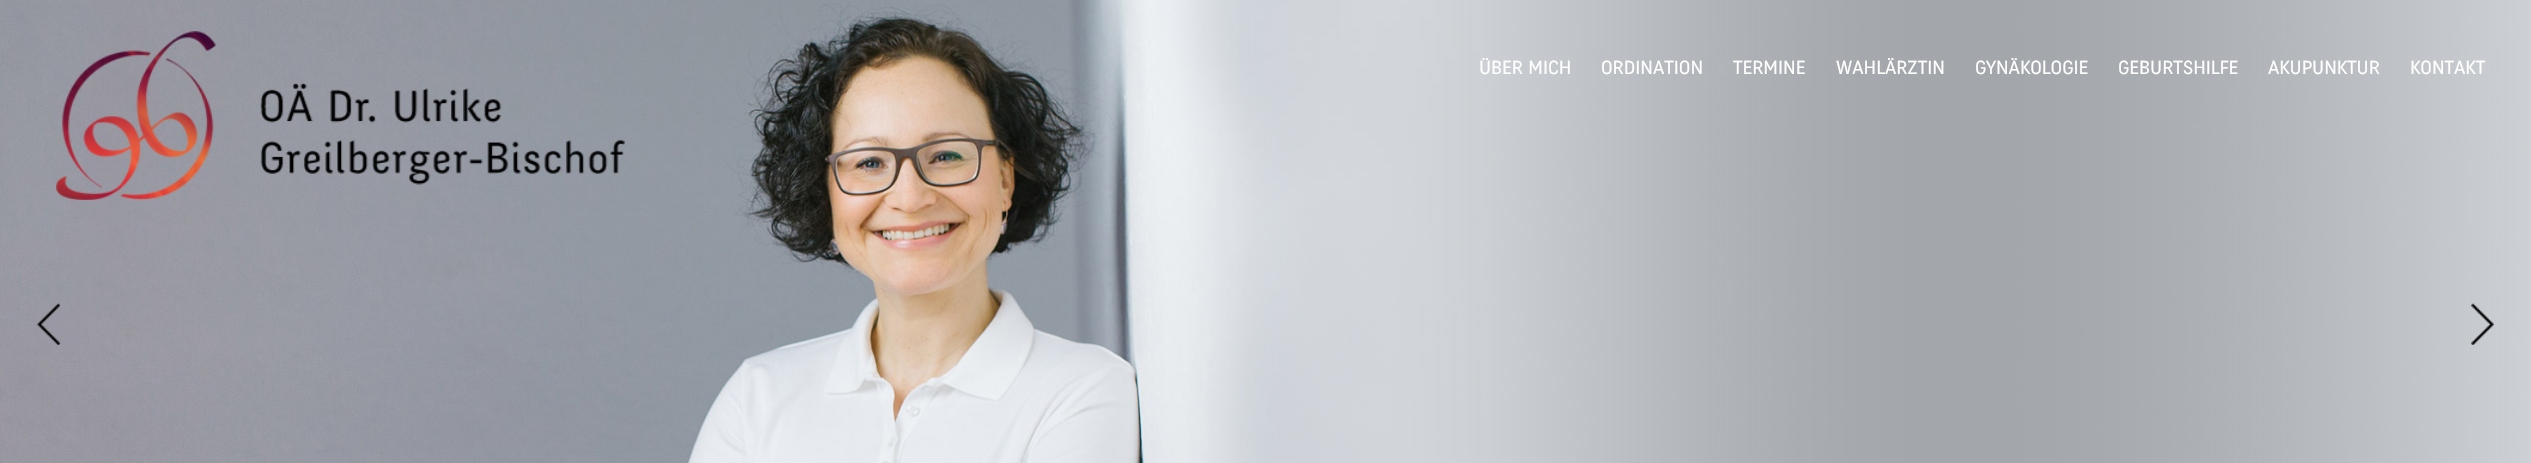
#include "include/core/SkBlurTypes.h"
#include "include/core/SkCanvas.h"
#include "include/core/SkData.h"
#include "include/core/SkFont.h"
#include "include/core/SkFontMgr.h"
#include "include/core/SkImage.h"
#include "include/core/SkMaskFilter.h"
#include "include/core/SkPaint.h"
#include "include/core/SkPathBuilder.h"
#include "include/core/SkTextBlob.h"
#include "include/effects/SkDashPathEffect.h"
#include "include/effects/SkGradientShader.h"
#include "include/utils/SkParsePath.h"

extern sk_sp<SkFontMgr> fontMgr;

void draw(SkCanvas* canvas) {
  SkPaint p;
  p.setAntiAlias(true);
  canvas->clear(SK_ColorWHITE);
  canvas->drawImageRect(SkImages::DeferredFromEncodedData(SkData::MakeFromFileName("images/1.png")), SkRect::MakeLTRB(0, 0, 2531, 463), SkSamplingOptions());
  canvas->drawImageRect(SkImages::DeferredFromEncodedData(SkData::MakeFromFileName("images/2.png")), SkRect::MakeLTRB(37, 303, 60, 345), SkSamplingOptions());
  canvas->drawImageRect(SkImages::DeferredFromEncodedData(SkData::MakeFromFileName("images/3.png")), SkRect::MakeLTRB(2471, 303, 2494, 345), SkSamplingOptions());
  canvas->drawImageRect(SkImages::DeferredFromEncodedData(SkData::MakeFromFileName("images/4.png")), SkRect::MakeLTRB(56, 31, 625, 200), SkSamplingOptions());
  SkFont font1(fontMgr->matchFamilyStyle("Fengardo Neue", SkFontStyle::Normal()), 18.75f);
  font1.setSubpixel(true);
  p.setColor(SK_ColorWHITE);
  canvas->drawString("ÜBER MICH", 1479, 74, font1, p);
  canvas->drawString("ORDINATION", 1601, 74, font1, p);
  canvas->drawString("TERMINE", 1733, 74, font1, p);
  canvas->drawString("WAHLÄRZTIN", 1836, 74, font1, p);
  canvas->drawString("GYNÄKOLOGIE", 1975, 74, font1, p);
  canvas->drawString("GEBURTSHILFE", 2118, 74, font1, p);
  canvas->drawString("AKUPUNKTUR", 2268, 74, font1, p);
  canvas->drawString("KONTAKT", 2410, 74, font1, p);
}
